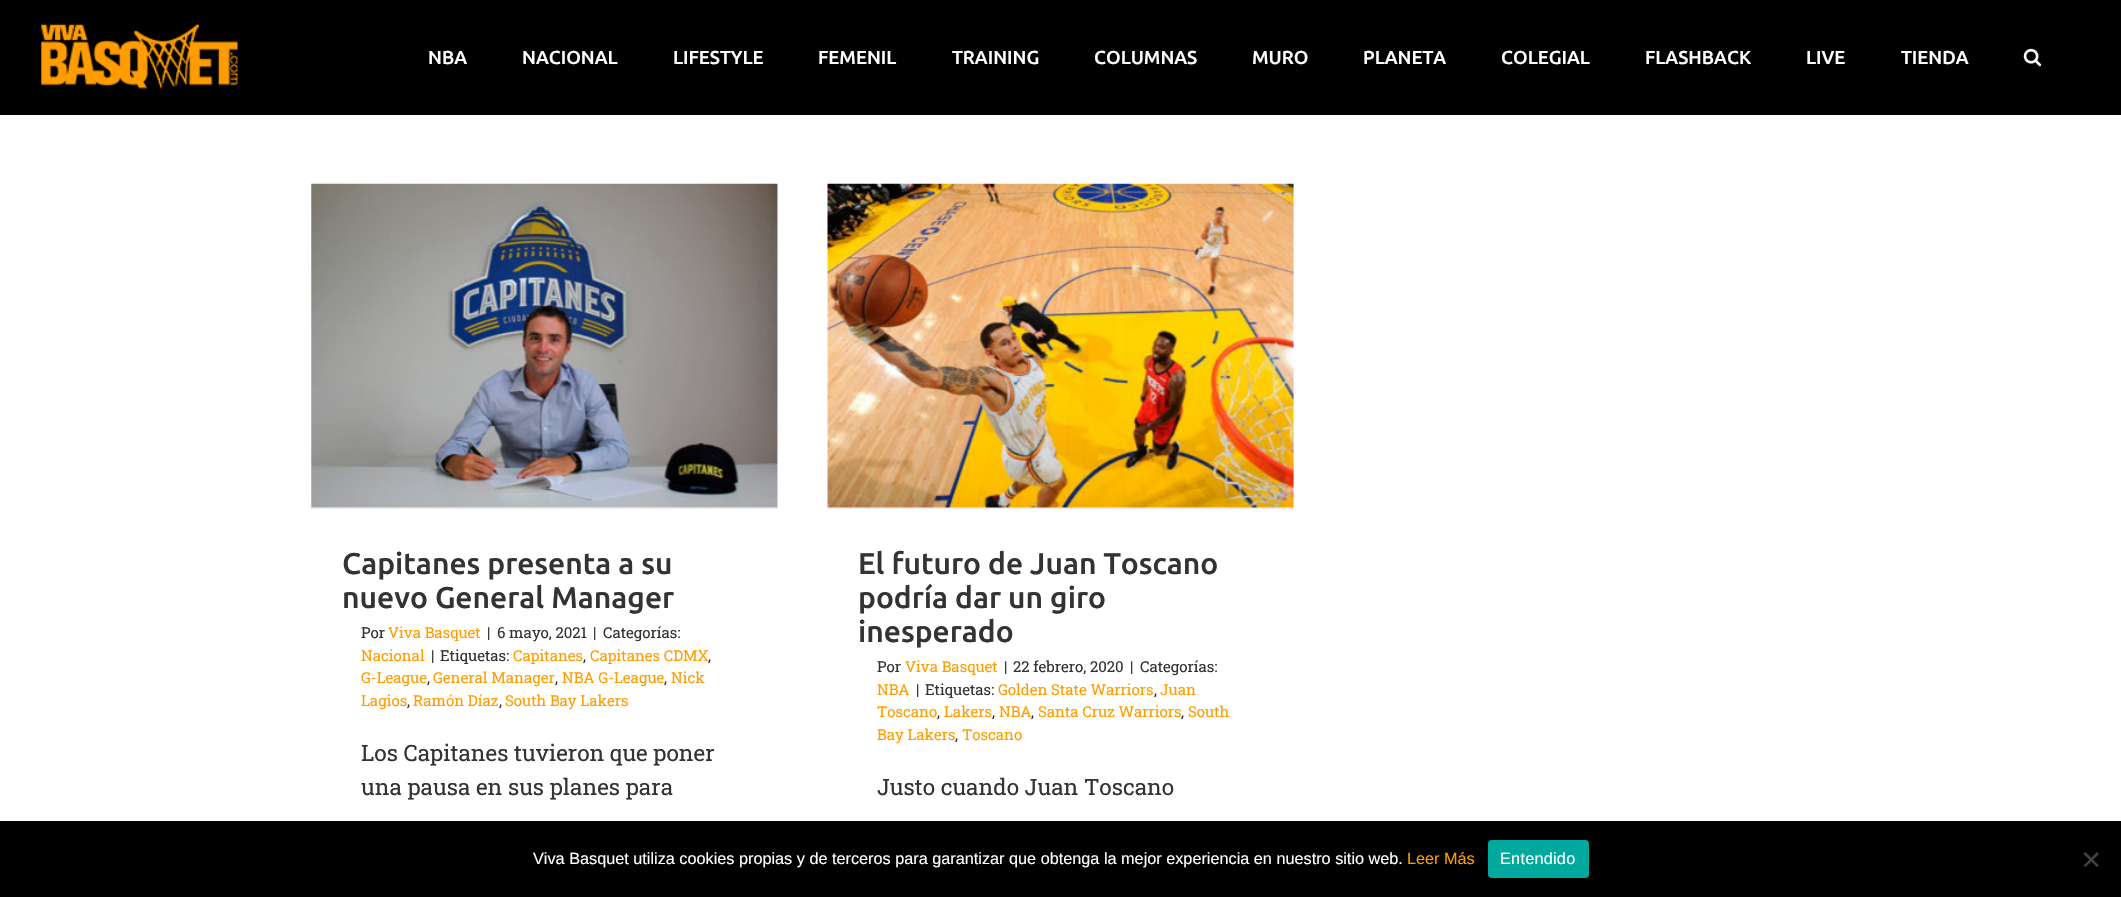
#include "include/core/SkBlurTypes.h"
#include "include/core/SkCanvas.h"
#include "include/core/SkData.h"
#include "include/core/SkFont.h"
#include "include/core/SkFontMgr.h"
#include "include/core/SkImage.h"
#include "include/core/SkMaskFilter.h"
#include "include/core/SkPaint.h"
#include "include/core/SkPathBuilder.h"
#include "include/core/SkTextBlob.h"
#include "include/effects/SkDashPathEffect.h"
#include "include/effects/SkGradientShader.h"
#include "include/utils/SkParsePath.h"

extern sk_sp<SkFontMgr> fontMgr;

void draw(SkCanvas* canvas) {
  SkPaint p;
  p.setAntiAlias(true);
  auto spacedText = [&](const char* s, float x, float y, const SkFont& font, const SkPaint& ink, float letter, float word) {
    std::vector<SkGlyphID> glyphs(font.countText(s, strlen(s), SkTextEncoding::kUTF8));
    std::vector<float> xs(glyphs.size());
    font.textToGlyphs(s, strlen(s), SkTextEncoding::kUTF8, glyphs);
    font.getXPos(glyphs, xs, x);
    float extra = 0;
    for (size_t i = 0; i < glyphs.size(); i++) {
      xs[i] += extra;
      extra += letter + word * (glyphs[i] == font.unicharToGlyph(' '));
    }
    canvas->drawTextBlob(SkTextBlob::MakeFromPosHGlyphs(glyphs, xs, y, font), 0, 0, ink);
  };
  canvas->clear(SK_ColorWHITE);
  p.setColor(SK_ColorBLACK);
  canvas->drawRect(SkRect::MakeLTRB(0, 0, 2121, 115), p);
  canvas->drawImageRect(SkImages::DeferredFromEncodedData(SkData::MakeFromFileName("images/1.png")), SkRect::MakeLTRB(41, 23, 238, 89), SkSamplingOptions());
  canvas->drawImageRect(SkImages::DeferredFromEncodedData(SkData::MakeFromFileName("images/2.png")), SkRect::MakeLTRB(2023, 48, 2042, 67), SkSamplingOptions());
  p.setColor(SkColorSetRGB(235, 234, 234));
  canvas->drawRect(SkRect::MakeLTRB(311, 508, 778, 509), p);
  canvas->drawImageRect(SkImages::DeferredFromEncodedData(SkData::MakeFromFileName("images/3.png")), SkRect::MakeLTRB(311, 183, 778, 508), SkSamplingOptions());
  canvas->drawRect(SkRect::MakeLTRB(828, 508, 1294, 509), p);
  canvas->drawImageRect(SkImages::DeferredFromEncodedData(SkData::MakeFromFileName("images/4.png")), SkRect::MakeLTRB(827, 183, 1294, 508), SkSamplingOptions());
  p.setColor(SK_ColorBLACK);
  canvas->drawRect(SkRect::MakeLTRB(0, 821, 2121, 897), p);
  p.setColor(SkColorSetRGB(0, 169, 157));
  canvas->drawRoundRect(SkRect::MakeLTRB(1488, 840, 1589, 878), 4, 4, p);
  p.setColor(SkColorSetRGB(64, 64, 64));
  canvas->drawPath(SkPathBuilder().moveTo(2097, 852).lineTo(2099, 854).lineTo(2085.5f, 867).lineTo(2083.5f, 865.5f).close().detach(), p);
  canvas->drawPath(SkPathBuilder().moveTo(2083.5f, 854).lineTo(2085.5f, 852).lineTo(2099, 865.5f).lineTo(2097, 867).close().detach(), p);
  SkFont font1(fontMgr->matchFamilyStyle("Ubuntu", SkFontStyle(500, SkFontStyle::kNormal_Width, SkFontStyle::kUpright_Slant)), 18.75f);
  font1.setSubpixel(true);
  p.setColor(SK_ColorWHITE);
  canvas->drawString("NBA", 428, 64, font1, p);
  canvas->drawString("NACIONAL", 522, 64, font1, p);
  canvas->drawString("LIFESTYLE", 673, 64, font1, p);
  canvas->drawString("FEMENIL", 818, 64, font1, p);
  canvas->drawString("TRAINING", 952, 64, font1, p);
  canvas->drawString("COLUMNAS", 1094, 64, font1, p);
  canvas->drawString("MURO", 1252, 64, font1, p);
  canvas->drawString("PLANETA", 1363, 64, font1, p);
  canvas->drawString("COLEGIAL", 1501, 64, font1, p);
  canvas->drawString("FLASHBACK", 1645, 64, font1, p);
  canvas->drawString("LIVE", 1806, 64, font1, p);
  canvas->drawString("TIENDA", 1901, 64, font1, p);
  SkFont font2(fontMgr->matchFamilyStyle("Ubuntu", SkFontStyle(500, SkFontStyle::kNormal_Width, SkFontStyle::kUpright_Slant)), 30);
  font2.setSubpixel(true);
  p.setColor(SkColorSetRGB(51, 51, 51));
  canvas->drawString("Capitanes presenta a su", 342, 574, font2, p);
  canvas->drawString("nuevo General Manager", 342, 608, font2, p);
  SkFont font3(fontMgr->matchFamilyStyle("Roboto Slab", SkFontStyle::Normal()), 15);
  font3.setSubpixel(true);
  canvas->drawString("Por", 361, 638, font3, p);
  p.setColor(SkColorSetRGB(255, 157, 0));
  canvas->drawString("Viva Basquet", 388, 638, font3, p);
  p.setColor(SkColorSetRGB(51, 51, 51));
  canvas->drawString("|", 487, 638, font3, p);
  canvas->drawString("6 mayo, 2021", 497, 638, font3, p);
  canvas->drawString("|", 593, 638, font3, p);
  canvas->drawString("Categorías:", 603, 638, font3, p);
  p.setColor(SkColorSetRGB(255, 157, 0));
  canvas->drawString("Nacional", 361, 661, font3, p);
  p.setColor(SkColorSetRGB(51, 51, 51));
  canvas->drawString("|", 431, 661, font3, p);
  canvas->drawString("Etiquetas:", 440, 661, font3, p);
  p.setColor(SkColorSetRGB(255, 157, 0));
  canvas->drawString("Capitanes", 513, 661, font3, p);
  p.setColor(SkColorSetRGB(51, 51, 51));
  canvas->drawString(",", 583, 661, font3, p);
  p.setColor(SkColorSetRGB(255, 157, 0));
  canvas->drawString("Capitanes CDMX", 590, 661, font3, p);
  p.setColor(SkColorSetRGB(51, 51, 51));
  canvas->drawString(",", 708, 661, font3, p);
  p.setColor(SkColorSetRGB(255, 157, 0));
  canvas->drawString("G-League", 361, 683, font3, p);
  p.setColor(SkColorSetRGB(51, 51, 51));
  canvas->drawString(",", 427, 683, font3, p);
  p.setColor(SkColorSetRGB(255, 157, 0));
  canvas->drawString("General Manager", 433, 683, font3, p);
  p.setColor(SkColorSetRGB(51, 51, 51));
  canvas->drawString(",", 555, 683, font3, p);
  p.setColor(SkColorSetRGB(255, 157, 0));
  canvas->drawString("NBA G-League", 562, 683, font3, p);
  p.setColor(SkColorSetRGB(51, 51, 51));
  canvas->drawString(",", 664, 683, font3, p);
  p.setColor(SkColorSetRGB(255, 157, 0));
  canvas->drawString("Nick", 671, 683, font3, p);
  canvas->drawString("Lagios", 361, 706, font3, p);
  p.setColor(SkColorSetRGB(51, 51, 51));
  canvas->drawString(",", 407, 706, font3, p);
  p.setColor(SkColorSetRGB(255, 157, 0));
  canvas->drawString("Ramón Díaz", 413, 706, font3, p);
  p.setColor(SkColorSetRGB(51, 51, 51));
  canvas->drawString(",", 499, 706, font3, p);
  p.setColor(SkColorSetRGB(255, 157, 0));
  canvas->drawString("South Bay Lakers", 505, 706, font3, p);
  SkFont font4(fontMgr->matchFamilyStyle("Roboto Slab", SkFontStyle::Normal()), 22.5f);
  font4.setSubpixel(true);
  p.setColor(SkColorSetRGB(51, 51, 51));
  canvas->drawString("Los Capitanes tuvieron que poner", 361, 761, font4, p);
  canvas->drawString("una pausa en sus planes para", 361, 795, font4, p);
  canvas->drawString("El futuro de Juan Toscano", 858, 574, font2, p);
  canvas->drawString("podría dar un giro", 858, 608, font2, p);
  canvas->drawString("inesperado", 858, 642, font2, p);
  canvas->drawString("Por", 877, 672, font3, p);
  p.setColor(SkColorSetRGB(255, 157, 0));
  canvas->drawString("Viva Basquet", 905, 672, font3, p);
  p.setColor(SkColorSetRGB(51, 51, 51));
  canvas->drawString("|", 1004, 672, font3, p);
  canvas->drawString("22 febrero, 2020", 1013, 672, font3, p);
  canvas->drawString("|", 1130, 672, font3, p);
  canvas->drawString("Categorías:", 1140, 672, font3, p);
  p.setColor(SkColorSetRGB(255, 157, 0));
  canvas->drawString("NBA", 877, 695, font3, p);
  p.setColor(SkColorSetRGB(51, 51, 51));
  canvas->drawString("|", 916, 695, font3, p);
  canvas->drawString("Etiquetas:", 925, 695, font3, p);
  p.setColor(SkColorSetRGB(255, 157, 0));
  canvas->drawString("Golden State Warriors", 998, 695, font3, p);
  p.setColor(SkColorSetRGB(51, 51, 51));
  canvas->drawString(",", 1154, 695, font3, p);
  p.setColor(SkColorSetRGB(255, 157, 0));
  canvas->drawString("Juan", 1160, 695, font3, p);
  canvas->drawString("Toscano", 877, 717, font3, p);
  canvas->drawString("Lakers", 944, 717, font3, p);
  canvas->drawString("NBA", 999, 717, font3, p);
  canvas->drawString("Santa Cruz Warriors", 1038, 717, font3, p);
  canvas->drawString("South", 1188, 717, font3, p);
  p.setColor(SkColorSetRGB(51, 51, 51));
  canvas->drawString(",", 937, 717, font3, p);
  canvas->drawString(",", 992, 717, font3, p);
  canvas->drawString(",", 1031, 717, font3, p);
  canvas->drawString(",", 1181, 717, font3, p);
  p.setColor(SkColorSetRGB(255, 157, 0));
  canvas->drawString("Bay Lakers", 877, 740, font3, p);
  p.setColor(SkColorSetRGB(51, 51, 51));
  canvas->drawString(",", 955, 740, font3, p);
  p.setColor(SkColorSetRGB(255, 157, 0));
  canvas->drawString("Toscano", 962, 740, font3, p);
  p.setColor(SkColorSetRGB(51, 51, 51));
  canvas->drawString("Justo cuando Juan Toscano", 877, 795, font4, p);
  SkFont font5(fontMgr->matchFamilyStyle("Liberation Sans", SkFontStyle::Normal()), 16.25f);
  font5.setSubpixel(true);
  p.setColor(SK_ColorWHITE);
  canvas->drawString("Viva Basquet utiliza cookies propias y de terceros para garantizar que obtenga la mejor experiencia en nuestro sitio web.", 533, 864, font5, p);
  p.setColor(SkColorSetRGB(255, 157, 0));
  canvas->drawString("Leer Más", 1407, 864, font5, p);
  p.setColor(SK_ColorWHITE);
  spacedText("Entendido", 1500, 864, font5, p, 0.25f, 0);
}
